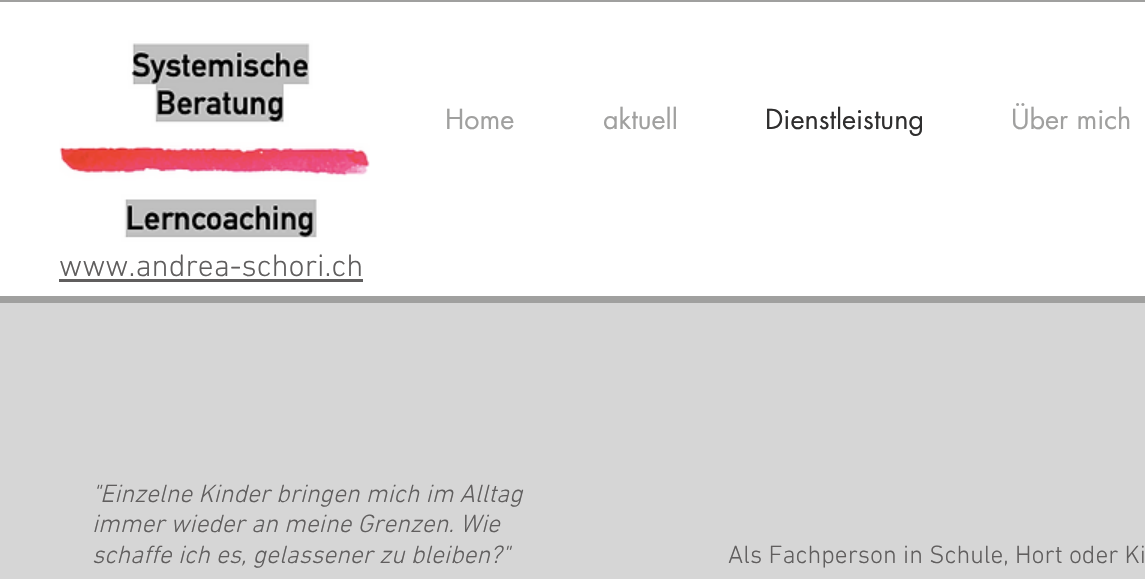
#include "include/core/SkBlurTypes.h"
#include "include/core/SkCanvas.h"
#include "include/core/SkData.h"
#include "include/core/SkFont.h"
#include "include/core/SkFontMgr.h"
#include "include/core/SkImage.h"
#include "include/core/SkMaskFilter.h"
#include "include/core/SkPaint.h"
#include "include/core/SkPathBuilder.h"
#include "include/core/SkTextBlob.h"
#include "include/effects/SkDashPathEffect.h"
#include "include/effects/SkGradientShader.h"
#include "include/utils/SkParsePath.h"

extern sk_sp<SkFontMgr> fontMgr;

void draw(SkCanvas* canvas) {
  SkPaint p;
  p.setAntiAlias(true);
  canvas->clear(SK_ColorWHITE);
  p.setColor(SkColorSetRGB(160, 160, 159));
  canvas->drawRect(SkRect::MakeLTRB(0, 0, 1145, 2), p);
  canvas->drawRect(SkRect::MakeLTRB(0, 296, 1145, 303), p);
  canvas->drawImageRect(SkImages::DeferredFromEncodedData(SkData::MakeFromFileName("images/1.png")), SkRect::MakeLTRB(59, 36, 370, 267), SkSamplingOptions());
  p.setColor(SkColorSetRGB(96, 94, 94));
  canvas->drawRect(SkRect::MakeLTRB(59, 279, 363, 282), p);
  p.setColor(SkColorSetRGB(214, 214, 214));
  canvas->drawRect(SkRect::MakeLTRB(0, 303, 1145, 579), p);
  SkFont font1(fontMgr->matchFamilyStyle("futura", SkFontStyle::Normal()), 27);
  font1.setSubpixel(true);
  p.setColor(SkColorSetRGB(160, 160, 159));
  canvas->drawString("Home", 445, 129, font1, p);
  canvas->drawString("aktuell", 603, 129, font1, p);
  p.setColor(SkColorSetRGB(47, 46, 46));
  canvas->drawString("Dienstleistung", 765, 129, font1, p);
  p.setColor(SkColorSetRGB(160, 160, 159));
  canvas->drawString("Über mich", 1011, 129, font1, p);
  SkFont font2(fontMgr->matchFamilyStyle("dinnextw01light", SkFontStyle(300, SkFontStyle::kNormal_Width, SkFontStyle::kUpright_Slant)), 31.5f);
  font2.setSubpixel(true);
  p.setColor(SkColorSetRGB(96, 94, 94));
  canvas->drawString("www.andrea-schori.ch", 59, 276, font2, p);
  SkFont font3(fontMgr->matchFamilyStyle("dinnextw01light", SkFontStyle(300, SkFontStyle::kNormal_Width, SkFontStyle::kItalic_Slant)), 25.5f);
  font3.setSubpixel(true);
  canvas->drawString("\"Einzelne Kinder bringen mich im Alltag", 92, 502, font3, p);
  canvas->drawString("immer wieder an meine Grenzen. Wie", 92, 532, font3, p);
  canvas->drawString("schaffe ich es, gelassener zu bleiben?\"", 92, 563, font3, p);
  SkFont font4(fontMgr->matchFamilyStyle("dinnextw01light", SkFontStyle(300, SkFontStyle::kNormal_Width, SkFontStyle::kUpright_Slant)), 25.5f);
  font4.setSubpixel(true);
  canvas->drawString("Als Fachperson in Schule, Hort oder Ki", 728, 563, font4, p);
}
